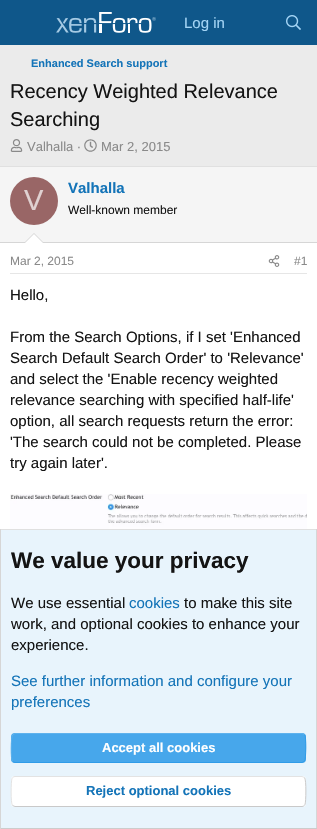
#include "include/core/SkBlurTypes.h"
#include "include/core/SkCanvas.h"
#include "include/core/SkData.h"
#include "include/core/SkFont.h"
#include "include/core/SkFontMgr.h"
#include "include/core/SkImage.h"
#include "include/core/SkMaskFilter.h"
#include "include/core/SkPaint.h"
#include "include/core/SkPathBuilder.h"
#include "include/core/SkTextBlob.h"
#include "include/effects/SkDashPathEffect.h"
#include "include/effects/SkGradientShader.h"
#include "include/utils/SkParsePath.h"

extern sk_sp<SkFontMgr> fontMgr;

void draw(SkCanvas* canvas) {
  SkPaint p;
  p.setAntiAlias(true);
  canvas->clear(SkColorSetRGB(235, 235, 235));
  p.setColor(SkColorSetRGB(15, 87, 138));
  canvas->drawRect(SkRect::MakeLTRB(0, 0, 317, 45), p);
  canvas->drawImageRect(SkImages::DeferredFromEncodedData(SkData::MakeFromFileName("images/1.png")), SkRect::MakeLTRB(56, 12, 156, 33), SkSamplingOptions());
  canvas->drawImageRect(SkImages::DeferredFromEncodedData(SkData::MakeFromFileName("images/2.png")), SkRect::MakeLTRB(286, 15, 301, 30), SkSamplingOptions());
  canvas->drawImageRect(SkImages::DeferredFromEncodedData(SkData::MakeFromFileName("images/3.png")), SkRect::MakeLTRB(10, 139, 23, 152), SkSamplingOptions());
  canvas->drawImageRect(SkImages::DeferredFromEncodedData(SkData::MakeFromFileName("images/4.png")), SkRect::MakeLTRB(84, 139, 97, 152), SkSamplingOptions());
  p.setColor(SK_ColorWHITE);
  canvas->drawRect(SkRect::MakeLTRB(0, 243, 317, 529), p);
  p.setColor(SkColorSetRGB(224, 224, 224));
  canvas->drawRect(SkRect::MakeLTRB(0, 166, 317, 167), p);
  p.setColor(SkColorSetRGB(245, 245, 245));
  canvas->drawRect(SkRect::MakeLTRB(0, 167, 317, 242), p);
  p.setColor(SkColorSetRGB(214, 214, 214));
  canvas->drawRect(SkRect::MakeLTRB(0, 242, 317, 243), p);
  p.setColor(SkColorSetRGB(153, 102, 102));
  canvas->drawCircle(34, 201, 24, p);
  p.setColor(SkColorSetRGB(214, 214, 214));
  canvas->drawPath(SkPathBuilder().moveTo(44, 243).lineTo(24, 243).lineTo(34, 233).close().detach(), p);
  p.setColor(SK_ColorWHITE);
  canvas->drawPath(SkPathBuilder().moveTo(43, 243).lineTo(25, 243).lineTo(34, 234).close().detach(), p);
  p.setColor(SkColorSetRGB(230, 230, 230));
  canvas->drawRect(SkRect::MakeLTRB(10, 273, 307, 274), p);
  canvas->drawImageRect(SkImages::DeferredFromEncodedData(SkData::MakeFromFileName("images/5.png")), SkRect::MakeLTRB(268, 255, 280, 267), SkSamplingOptions());
  canvas->drawImageRect(SkImages::DeferredFromEncodedData(SkData::MakeFromFileName("images/6.png")), SkRect::MakeLTRB(10, 494, 307, 529), SkSamplingOptions());
  p.setColor(SkColorSetRGB(232, 244, 252));
  canvas->drawRect(SkRect::MakeLTRB(1, 530, 316, 828), p);
  p.setColor(SkColorSetRGB(224, 224, 224));
  canvas->drawRect(SkRect::MakeLTRB(0, 529, 317, 530), p);
  p.setColor(SkColorSetRGB(214, 214, 214));
  canvas->drawRect(SkRect::MakeLTRB(316, 529, 317, 829), p);
  p.setColor(SkColorSetRGB(204, 204, 204));
  canvas->drawRect(SkRect::MakeLTRB(0, 828, 317, 829), p);
  p.setColor(SkColorSetRGB(214, 214, 214));
  canvas->drawRect(SkRect::MakeLTRB(0, 529, 1, 829), p);
  p.setColor(SkColorSetRGB(71, 167, 235));
  canvas->drawRoundRect(SkRect::MakeLTRB(11, 733, 306, 763), 4, 4, p);
  p.setStyle(SkPaint::kStroke_Style);
  p.setStrokeWidth(1);
  p.setColor(SkColorSetRGB(48, 156, 232));
  canvas->drawPath(SkPathBuilder().moveTo(304.5f, 734.5f).cubicTo(306.5f, 736.5f, 306, 759.5f, 304.5f, 761).lineTo(302, 762.5f).lineTo(15, 762.5f).lineTo(12.5f, 761.5f).detach(), p);
  p.setColor(SkColorSetRGB(94, 178, 237));
  canvas->drawPath(SkPathBuilder().moveTo(12.5f, 761.5f).cubicTo(10.5f, 759.5f, 11, 736.5f, 12.5f, 735).lineTo(15, 733.5f).lineTo(302, 733.5f).lineTo(304.5f, 734.5f).detach(), p);
  p.setStyle(SkPaint::kFill_Style);
  p.setColor(SK_ColorWHITE);
  canvas->drawRoundRect(SkRect::MakeLTRB(11, 776, 306, 807), 4, 4, p);
  p.setStyle(SkPaint::kStroke_Style);
  p.setColor(SkColorSetRGB(201, 201, 201));
  canvas->drawPath(SkPathBuilder().moveTo(304.5f, 777.5f).cubicTo(306.5f, 779.5f, 306, 802.5f, 305, 804.5f).cubicTo(304.5f, 805.5f, 303.5f, 806.5f, 302, 806.5f).lineTo(15, 806.5f).lineTo(12.5f, 805.5f).detach(), p);
  p.setColor(SkColorSetRGB(227, 227, 227));
  canvas->drawPath(SkPathBuilder().moveTo(12.5f, 805.5f).cubicTo(10.5f, 803.5f, 11, 780.5f, 12, 778.5f).cubicTo(12.5f, 777.5f, 13.5f, 776.5f, 15, 776.5f).lineTo(302, 776.5f).lineTo(304.5f, 777.5f).detach(), p);
  SkFont font1(fontMgr->matchFamilyStyle("Liberation Sans", SkFontStyle::Normal()), 15);
  font1.setSubpixel(true);
  p.setStyle(SkPaint::kFill_Style);
  p.setColor(SkColorSetRGB(163, 212, 245));
  canvas->drawString("Log in", 184, 28, font1, p);
  SkFont font2(fontMgr->matchFamilyStyle("Liberation Sans", SkFontStyle::Bold()), 11);
  font2.setSubpixel(true);
  p.setColor(SkColorSetRGB(20, 116, 184));
  canvas->drawString("Enhanced Search support", 31, 67, font2, p);
  SkFont font3(fontMgr->matchFamilyStyle("Liberation Sans", SkFontStyle::Normal()), 20);
  font3.setSubpixel(true);
  p.setColor(SkColorSetRGB(20, 20, 20));
  canvas->drawString("Recency Weighted Relevance", 10, 98, font3, p);
  canvas->drawString("Searching", 10, 126, font3, p);
  SkFont font4(fontMgr->matchFamilyStyle("Liberation Sans", SkFontStyle::Normal()), 13);
  font4.setSubpixel(true);
  p.setColor(SkColorSetRGB(138, 138, 138));
  canvas->drawString("Valhalla ·", 27, 151, font4, p);
  canvas->drawString("Mar 2, 2015", 101, 151, font4, p);
  SkFont font5(fontMgr->matchFamilyStyle("Liberation Sans", SkFontStyle::Normal()), 29);
  font5.setSubpixel(true);
  p.setColor(SkColorSetRGB(224, 209, 209));
  canvas->drawString("V", 24, 210, font5, p);
  SkFont font6(fontMgr->matchFamilyStyle("Liberation Sans", SkFontStyle::Bold()), 15);
  font6.setSubpixel(true);
  p.setColor(SkColorSetRGB(20, 116, 184));
  canvas->drawString("Valhalla", 68, 193, font6, p);
  SkFont font7(fontMgr->matchFamilyStyle("Liberation Sans", SkFontStyle::Normal()), 12);
  font7.setSubpixel(true);
  p.setColor(SkColorSetRGB(20, 20, 20));
  canvas->drawString("Well-known member", 68, 214, font7, p);
  p.setColor(SkColorSetRGB(138, 138, 138));
  canvas->drawString("Mar 2, 2015", 10, 265, font7, p);
  canvas->drawString("#1", 294, 265, font7, p);
  p.setColor(SkColorSetRGB(20, 20, 20));
  canvas->drawString("Hello,", 10, 300, font1, p);
  canvas->drawString("From the Search Options, if I set 'Enhanced", 10, 342, font1, p);
  canvas->drawString("Search Default Search Order' to 'Relevance'", 10, 363, font1, p);
  canvas->drawString("and select the 'Enable recency weighted", 10, 384, font1, p);
  canvas->drawString("relevance searching with specified half-life'", 10, 405, font1, p);
  canvas->drawString("option, all search requests return the error:", 10, 426, font1, p);
  canvas->drawString("'The search could not be completed. Please", 10, 447, font1, p);
  canvas->drawString("try again later'.", 10, 468, font1, p);
  SkFont font8(fontMgr->matchFamilyStyle("Liberation Sans", SkFontStyle::Bold()), 22.5f);
  font8.setSubpixel(true);
  canvas->drawString("We value your privacy", 11, 568, font8, p);
  canvas->drawString("We use essential", 11, 608, font1, p);
  p.setColor(SkColorSetRGB(20, 116, 184));
  canvas->drawString("cookies", 129, 608, font1, p);
  p.setColor(SkColorSetRGB(20, 20, 20));
  canvas->drawString("to make this site", 184, 608, font1, p);
  canvas->drawString("work, and optional cookies to enhance your", 11, 629, font1, p);
  canvas->drawString("experience.", 11, 650, font1, p);
  p.setColor(SkColorSetRGB(20, 116, 184));
  canvas->drawString("See further information and configure your", 11, 686, font1, p);
  canvas->drawString("preferences", 11, 707, font1, p);
  SkFont font9(fontMgr->matchFamilyStyle("Liberation Sans", SkFontStyle::Bold()), 13);
  font9.setSubpixel(true);
  p.setColor(SK_ColorWHITE);
  canvas->drawString("Accept all cookies", 102, 752, font9, p);
  p.setColor(SkColorSetRGB(20, 116, 184));
  canvas->drawString("Reject optional cookies", 86, 795, font9, p);
}
